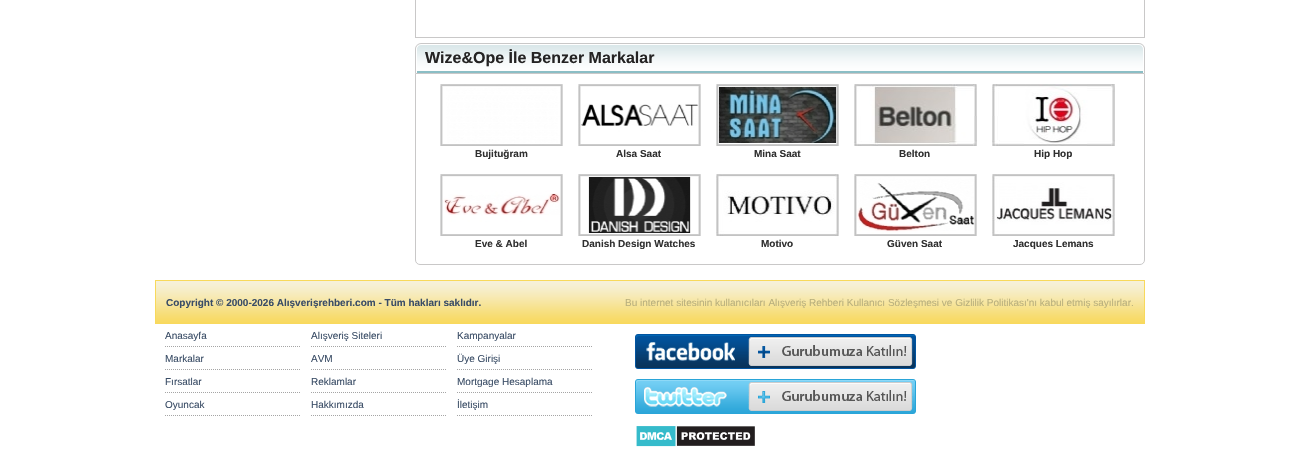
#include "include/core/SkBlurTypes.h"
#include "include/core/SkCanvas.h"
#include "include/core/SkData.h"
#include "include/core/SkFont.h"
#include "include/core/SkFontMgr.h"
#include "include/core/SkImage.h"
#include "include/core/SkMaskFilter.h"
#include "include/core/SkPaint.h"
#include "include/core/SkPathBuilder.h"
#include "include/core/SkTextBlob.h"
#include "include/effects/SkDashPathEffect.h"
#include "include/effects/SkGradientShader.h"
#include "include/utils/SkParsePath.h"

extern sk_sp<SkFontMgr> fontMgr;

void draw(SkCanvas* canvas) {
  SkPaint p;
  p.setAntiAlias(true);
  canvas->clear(SK_ColorWHITE);
  p.setStyle(SkPaint::kStroke_Style);
  p.setStrokeWidth(1);
  p.setColor(SkColorSetRGB(201, 200, 200));
  canvas->drawRect(SkRect::MakeLTRB(415.5f, -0.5f, 1144.5f, 37.5f), p);
  canvas->drawImageRect(SkImages::DeferredFromEncodedData(SkData::MakeFromFileName("images/1.png")), SkRect::MakeLTRB(415, 43, 1145, 73), SkSamplingOptions());
  canvas->drawPath(SkPathBuilder().moveTo(415.5f, 73.5f).lineTo(1144.5f, 73.5f).lineTo(1144.5f, 260).cubicTo(1144.5f, 262.5f, 1142.5f, 264.5f, 1140, 264.5f).lineTo(420, 264.5f).cubicTo(417.5f, 264.5f, 415.5f, 262.5f, 415.5f, 260).close().detach(), p);
  canvas->drawImageRect(SkImages::DeferredFromEncodedData(SkData::MakeFromFileName("images/2.png")), SkRect::MakeLTRB(440, 84, 563, 146), SkSamplingOptions());
  canvas->drawImageRect(SkImages::DeferredFromEncodedData(SkData::MakeFromFileName("images/3.png")), SkRect::MakeLTRB(578, 84, 701, 146), SkSamplingOptions());
  canvas->drawImageRect(SkImages::DeferredFromEncodedData(SkData::MakeFromFileName("images/4.png")), SkRect::MakeLTRB(716, 84, 839, 146), SkSamplingOptions());
  canvas->drawImageRect(SkImages::DeferredFromEncodedData(SkData::MakeFromFileName("images/5.png")), SkRect::MakeLTRB(854, 84, 977, 146), SkSamplingOptions());
  canvas->drawImageRect(SkImages::DeferredFromEncodedData(SkData::MakeFromFileName("images/6.png")), SkRect::MakeLTRB(992, 84, 1115, 146), SkSamplingOptions());
  canvas->drawImageRect(SkImages::DeferredFromEncodedData(SkData::MakeFromFileName("images/7.png")), SkRect::MakeLTRB(440, 174, 563, 236), SkSamplingOptions());
  canvas->drawImageRect(SkImages::DeferredFromEncodedData(SkData::MakeFromFileName("images/8.png")), SkRect::MakeLTRB(578, 174, 701, 236), SkSamplingOptions());
  canvas->drawImageRect(SkImages::DeferredFromEncodedData(SkData::MakeFromFileName("images/9.png")), SkRect::MakeLTRB(716, 174, 839, 236), SkSamplingOptions());
  canvas->drawImageRect(SkImages::DeferredFromEncodedData(SkData::MakeFromFileName("images/10.png")), SkRect::MakeLTRB(854, 174, 977, 236), SkSamplingOptions());
  canvas->drawImageRect(SkImages::DeferredFromEncodedData(SkData::MakeFromFileName("images/11.png")), SkRect::MakeLTRB(992, 174, 1115, 236), SkSamplingOptions());
  canvas->drawImageRect(SkImages::DeferredFromEncodedData(SkData::MakeFromFileName("images/12.png")), SkRect::MakeLTRB(156, 281, 1144, 324), SkSamplingOptions());
  p.setStyle(SkPaint::kFill_Style);
  p.setColor(SkColorSetRGB(248, 217, 91));
  canvas->drawRect(SkRect::MakeLTRB(155, 280, 1145, 281), p);
  canvas->drawRect(SkRect::MakeLTRB(1144, 280, 1145, 324), p);
  canvas->drawRect(SkRect::MakeLTRB(155, 280, 156, 324), p);
  p.setStyle(SkPaint::kStroke_Style);
  p.setColor(SkColorSetRGB(165, 165, 165));
  p.setPathEffect(SkDashPathEffect::Make({{1, 1}}, 0));
  canvas->drawPath(SkPathBuilder().moveTo(165, 346.5f).lineTo(301, 346.5f).detach(), p);
  p.setPathEffect(nullptr);
  p.setPathEffect(SkDashPathEffect::Make({{1, 1}}, 0));
  canvas->drawPath(SkPathBuilder().moveTo(311, 346.5f).lineTo(447, 346.5f).detach(), p);
  p.setPathEffect(nullptr);
  p.setPathEffect(SkDashPathEffect::Make({{1, 1}}, 0));
  canvas->drawPath(SkPathBuilder().moveTo(457, 346.5f).lineTo(593, 346.5f).detach(), p);
  p.setPathEffect(nullptr);
  p.setPathEffect(SkDashPathEffect::Make({{1, 1}}, 0));
  canvas->drawPath(SkPathBuilder().moveTo(165, 369.5f).lineTo(301, 369.5f).detach(), p);
  p.setPathEffect(nullptr);
  p.setPathEffect(SkDashPathEffect::Make({{1, 1}}, 0));
  canvas->drawPath(SkPathBuilder().moveTo(311, 369.5f).lineTo(447, 369.5f).detach(), p);
  p.setPathEffect(nullptr);
  p.setPathEffect(SkDashPathEffect::Make({{1, 1}}, 0));
  canvas->drawPath(SkPathBuilder().moveTo(457, 369.5f).lineTo(593, 369.5f).detach(), p);
  p.setPathEffect(nullptr);
  p.setPathEffect(SkDashPathEffect::Make({{1, 1}}, 0));
  canvas->drawPath(SkPathBuilder().moveTo(165, 392.5f).lineTo(301, 392.5f).detach(), p);
  p.setPathEffect(nullptr);
  p.setPathEffect(SkDashPathEffect::Make({{1, 1}}, 0));
  canvas->drawPath(SkPathBuilder().moveTo(311, 392.5f).lineTo(447, 392.5f).detach(), p);
  p.setPathEffect(nullptr);
  p.setPathEffect(SkDashPathEffect::Make({{1, 1}}, 0));
  canvas->drawPath(SkPathBuilder().moveTo(457, 392.5f).lineTo(593, 392.5f).detach(), p);
  p.setPathEffect(nullptr);
  p.setPathEffect(SkDashPathEffect::Make({{1, 1}}, 0));
  canvas->drawPath(SkPathBuilder().moveTo(165, 415.5f).lineTo(301, 415.5f).detach(), p);
  p.setPathEffect(nullptr);
  p.setPathEffect(SkDashPathEffect::Make({{1, 1}}, 0));
  canvas->drawPath(SkPathBuilder().moveTo(311, 415.5f).lineTo(447, 415.5f).detach(), p);
  p.setPathEffect(nullptr);
  p.setPathEffect(SkDashPathEffect::Make({{1, 1}}, 0));
  canvas->drawPath(SkPathBuilder().moveTo(457, 415.5f).lineTo(593, 415.5f).detach(), p);
  p.setPathEffect(nullptr);
  canvas->drawImageRect(SkImages::DeferredFromEncodedData(SkData::MakeFromFileName("images/13.png")), SkRect::MakeLTRB(635, 334, 916, 369), SkSamplingOptions());
  canvas->drawImageRect(SkImages::DeferredFromEncodedData(SkData::MakeFromFileName("images/14.png")), SkRect::MakeLTRB(635, 379, 916, 414), SkSamplingOptions());
  canvas->drawImageRect(SkImages::DeferredFromEncodedData(SkData::MakeFromFileName("images/15.png")), SkRect::MakeLTRB(636, 426, 755, 447), SkSamplingOptions());
  SkFont font1(fontMgr->matchFamilyStyle("Liberation Sans", SkFontStyle::Bold()), 16);
  font1.setSubpixel(true);
  p.setStyle(SkPaint::kFill_Style);
  p.setColor(SkColorSetRGB(36, 35, 35));
  canvas->drawString("Wize&Ope İle Benzer Markalar", 425, 63, font1, p);
  SkFont font2(fontMgr->matchFamilyStyle("Liberation Sans", SkFontStyle::Bold()), 10);
  font2.setSubpixel(true);
  p.setColor(SkColorSetRGB(48, 48, 48));
  canvas->drawString("Bujituğram", 475, 157, font2, p);
  canvas->drawString("Alsa Saat", 616, 157, font2, p);
  canvas->drawString("Mina Saat", 754, 157, font2, p);
  canvas->drawString("Belton", 899, 157, font2, p);
  canvas->drawString("Hip Hop", 1034, 157, font2, p);
  canvas->drawString("Eve & Abel", 475, 247, font2, p);
  canvas->drawString("Danish Design Watches", 582, 247, font2, p);
  canvas->drawString("Motivo", 761, 247, font2, p);
  canvas->drawString("Güven Saat", 887, 247, font2, p);
  canvas->drawString("Jacques Lemans", 1013, 247, font2, p);
  p.setColor(SkColorSetRGB(58, 77, 102));
  canvas->drawString("Copyright © 2000-2026 Alışverişrehberi.com - Tüm hakları saklıdır.", 166, 306, font2, p);
  SkFont font3(fontMgr->matchFamilyStyle("Liberation Sans", SkFontStyle::Normal()), 10);
  font3.setSubpixel(true);
  p.setColor(SkColorSetRGB(185, 176, 125));
  canvas->drawString("Bu internet sitesinin kullanıcıları Alışveriş Rehberi Kullanıcı Sözleşmesi ve Gizlilik Politikası'nı kabul etmiş sayılırlar.", 625, 306, font3, p);
  p.setColor(SkColorSetRGB(58, 77, 102));
  canvas->drawString("Anasayfa", 165, 339, font3, p);
  canvas->drawString("Alışveriş Siteleri", 311, 339, font3, p);
  canvas->drawString("Kampanyalar", 457, 339, font3, p);
  canvas->drawString("Markalar", 165, 362, font3, p);
  canvas->drawString("AVM", 311, 362, font3, p);
  canvas->drawString("Üye Girişi", 457, 362, font3, p);
  canvas->drawString("Fırsatlar", 165, 385, font3, p);
  canvas->drawString("Reklamlar", 311, 385, font3, p);
  canvas->drawString("Mortgage Hesaplama", 457, 385, font3, p);
  canvas->drawString("Oyuncak", 165, 408, font3, p);
  canvas->drawString("Hakkımızda", 311, 408, font3, p);
  canvas->drawString("İletişim", 457, 408, font3, p);
}
